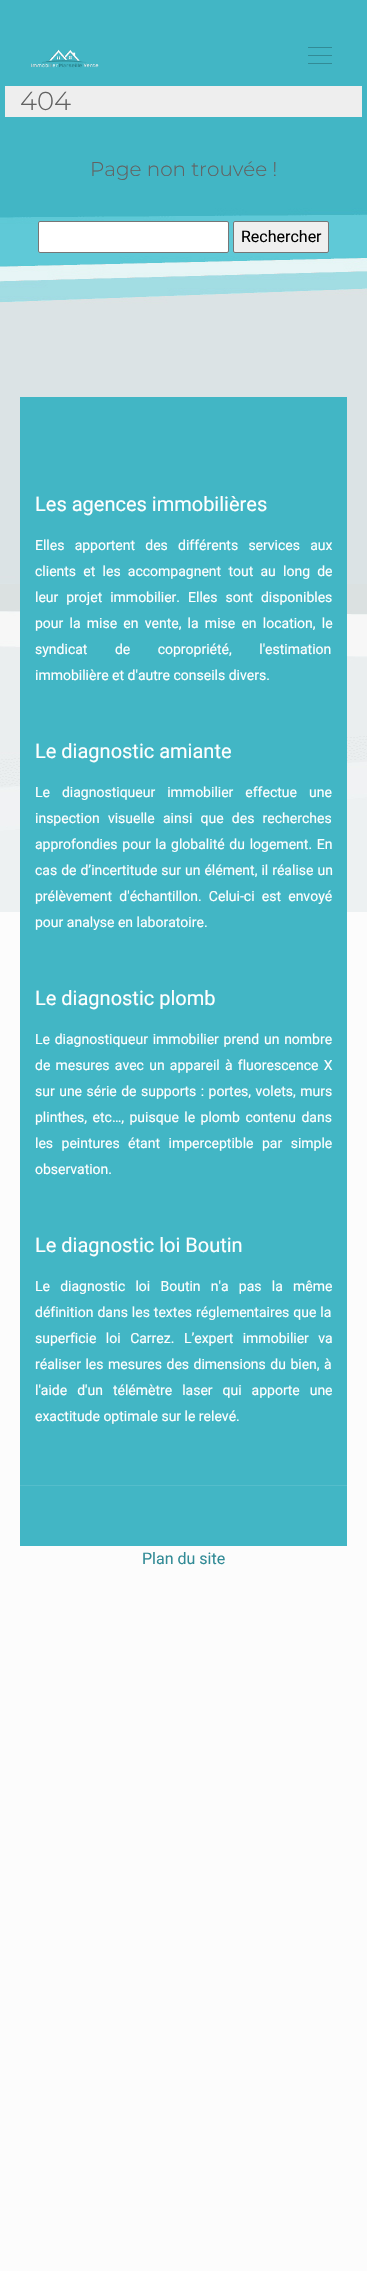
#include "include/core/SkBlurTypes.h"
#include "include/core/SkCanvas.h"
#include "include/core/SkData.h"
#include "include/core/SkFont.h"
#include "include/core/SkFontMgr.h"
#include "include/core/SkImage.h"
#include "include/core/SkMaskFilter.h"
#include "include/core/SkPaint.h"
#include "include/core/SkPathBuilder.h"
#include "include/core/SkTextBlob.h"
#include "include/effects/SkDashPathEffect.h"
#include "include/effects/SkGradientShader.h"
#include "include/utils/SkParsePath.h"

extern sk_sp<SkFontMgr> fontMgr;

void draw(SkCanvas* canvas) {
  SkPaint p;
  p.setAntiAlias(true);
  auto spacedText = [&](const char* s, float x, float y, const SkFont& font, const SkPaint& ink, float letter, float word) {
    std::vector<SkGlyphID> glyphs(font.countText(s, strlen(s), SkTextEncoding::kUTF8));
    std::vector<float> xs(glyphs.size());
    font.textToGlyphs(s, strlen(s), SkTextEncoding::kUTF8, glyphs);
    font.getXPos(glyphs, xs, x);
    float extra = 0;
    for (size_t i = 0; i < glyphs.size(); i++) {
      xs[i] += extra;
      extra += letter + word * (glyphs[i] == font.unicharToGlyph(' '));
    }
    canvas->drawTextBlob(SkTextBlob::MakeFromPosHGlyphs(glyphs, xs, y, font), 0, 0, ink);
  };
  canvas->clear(SkColorSetRGB(252, 252, 252));
  canvas->drawImageRect(SkImages::DeferredFromEncodedData(SkData::MakeFromFileName("images/1.png")), SkRect::MakeLTRB(0, 0, 367, 912), SkSamplingOptions());
  canvas->drawImageRect(SkImages::DeferredFromEncodedData(SkData::MakeFromFileName("images/2.png")), SkRect::MakeLTRB(31, 49, 99, 68), SkSamplingOptions());
  p.setColor(SkColorSetRGB(50, 139, 150));
  canvas->drawRect(SkRect::MakeLTRB(308, 47, 332, 48), p);
  canvas->drawRect(SkRect::MakeLTRB(308, 55, 332, 56), p);
  canvas->drawRect(SkRect::MakeLTRB(308, 63, 332, 64), p);
  p.setColor(SkColorSetRGB(238, 238, 238));
  canvas->drawRect(SkRect::MakeLTRB(5, 86, 362, 117), p);
  p.setColor(SK_ColorWHITE);
  canvas->drawRoundRect(SkRect::MakeLTRB(38.5f, 221.5f, 228.5f, 252.5f), 1.5f, 1.5f, p);
  p.setStyle(SkPaint::kStroke_Style);
  p.setStrokeWidth(1);
  p.setColor(SkColorSetRGB(118, 118, 118));
  canvas->drawRoundRect(SkRect::MakeLTRB(38.5f, 221.5f, 228.5f, 252.5f), 1.5f, 1.5f, p);
  p.setStyle(SkPaint::kFill_Style);
  p.setColor(SkColorSetRGB(239, 239, 239));
  canvas->drawRoundRect(SkRect::MakeLTRB(233.5f, 221.5f, 328.5f, 252.5f), 1.5f, 1.5f, p);
  p.setStyle(SkPaint::kStroke_Style);
  p.setColor(SkColorSetRGB(118, 118, 118));
  canvas->drawRoundRect(SkRect::MakeLTRB(233.5f, 221.5f, 328.5f, 252.5f), 1.5f, 1.5f, p);
  p.setStyle(SkPaint::kFill_Style);
  p.setColor(SkColorSetRGB(66, 182, 197));
  canvas->drawRect(SkRect::MakeLTRB(20, 397, 347, 1485), p);
  canvas->drawRect(SkRect::MakeLTRB(20, 1486, 347, 1546), p);
  p.setColor(SkColorSetRGB(85, 189, 203));
  canvas->drawRect(SkRect::MakeLTRB(20, 1485, 347, 1486), p);
  SkFont font1(fontMgr->matchFamilyStyle("Montserrat", SkFontStyle(300, SkFontStyle::kNormal_Width, SkFontStyle::kUpright_Slant)), 26);
  font1.setSubpixel(true);
  p.setColor(SkColorSetRGB(98, 98, 98));
  canvas->drawString("404", 20, 110, font1, p);
  SkFont font2(fontMgr->matchFamilyStyle("Montserrat", SkFontStyle(300, SkFontStyle::kNormal_Width, SkFontStyle::kUpright_Slant)), 20);
  font2.setSubpixel(true);
  canvas->drawString("Page non trouvée !", 90, 176, font2, p);
  SkFont font3(fontMgr->matchFamilyStyle("Roboto", SkFontStyle::Normal()), 16);
  font3.setSubpixel(true);
  p.setColor(SK_ColorBLACK);
  canvas->drawString("Rechercher", 241, 242, font3, p);
  SkFont font4(fontMgr->matchFamilyStyle("Roboto", SkFontStyle::Normal()), 20);
  font4.setSubpixel(true);
  p.setColor(SK_ColorWHITE);
  canvas->drawString("Les agences immobilières", 35, 511, font4, p);
  SkFont font5(fontMgr->matchFamilyStyle("Roboto", SkFontStyle::Normal()), 14);
  font5.setSubpixel(true);
  spacedText("Elles apportent des différents services aux", 35, 550, font5, p, 0, 6.75f);
  spacedText("clients et les accompagnent tout au long de", 35, 576, font5, p, 0, 3.75f);
  spacedText("leur projet immobilier. Elles sont disponibles", 35, 602, font5, p, 0, 4.5f);
  spacedText("pour la mise en vente, la mise en location, le", 35, 628, font5, p, 0, 2.75f);
  spacedText("syndicat de copropriété, l'estimation", 35, 654, font5, p, 0, 24);
  canvas->drawString("immobilière et d'autre conseils divers.", 35, 680, font5, p);
  canvas->drawString("Le diagnostic amiante", 35, 758, font4, p);
  spacedText("Le diagnostiqueur immobilier effectue une", 35, 797, font5, p, 0, 8.5f);
  spacedText("inspection visuelle ainsi que des recherches", 35, 823, font5, p, 0, 4.75f);
  spacedText("approfondies pour la globalité du logement. En", 35, 849, font5, p, 0, 1.25f);
  spacedText("cas de d’incertitude sur un élément, il réalise un", 35, 875, font5, p, 0, 0.5f);
  spacedText("prélèvement d'échantillon. Celui-ci est envoyé", 35, 901, font5, p, 0, 3.75f);
  canvas->drawString("pour analyse en laboratoire.", 35, 927, font5, p);
  canvas->drawString("Le diagnostic plomb", 35, 1005, font4, p);
  spacedText("Le diagnostiqueur immobilier prend un nombre", 35, 1044, font5, p, 0, 1.25f);
  spacedText("de mesures avec un appareil à fluorescence X", 35, 1070, font5, p, 0, 1.75f);
  spacedText("sur une série de supports : portes, volets, murs", 35, 1096, font5, p, 0, 1);
  spacedText("plinthes, etc…, puisque le plomb contenu dans", 35, 1122, font5, p, 0, 2);
  spacedText("les peintures étant imperceptible par simple", 35, 1148, font5, p, 0, 5);
  canvas->drawString("observation.", 35, 1174, font5, p);
  canvas->drawString("Le diagnostic loi Boutin", 35, 1252, font4, p);
  spacedText("Le diagnostic loi Boutin n'a pas la même", 35, 1291, font5, p, 0, 6.75f);
  spacedText("définition dans les textes réglementaires que la", 35, 1317, font5, p, 0, 0.5f);
  spacedText("superficie loi Carrez. L’expert immobilier va", 35, 1343, font5, p, 0, 6);
  spacedText("réaliser les mesures des dimensions du bien, à", 35, 1369, font5, p, 0, 1);
  spacedText("l'aide d'un télémètre laser qui apporte une", 35, 1395, font5, p, 0, 6.5f);
  canvas->drawString("exactitude optimale sur le relevé.", 35, 1421, font5, p);
  p.setColor(SkColorSetRGB(50, 139, 150));
  canvas->drawString("Plan du site", 142, 1564, font3, p);
}
